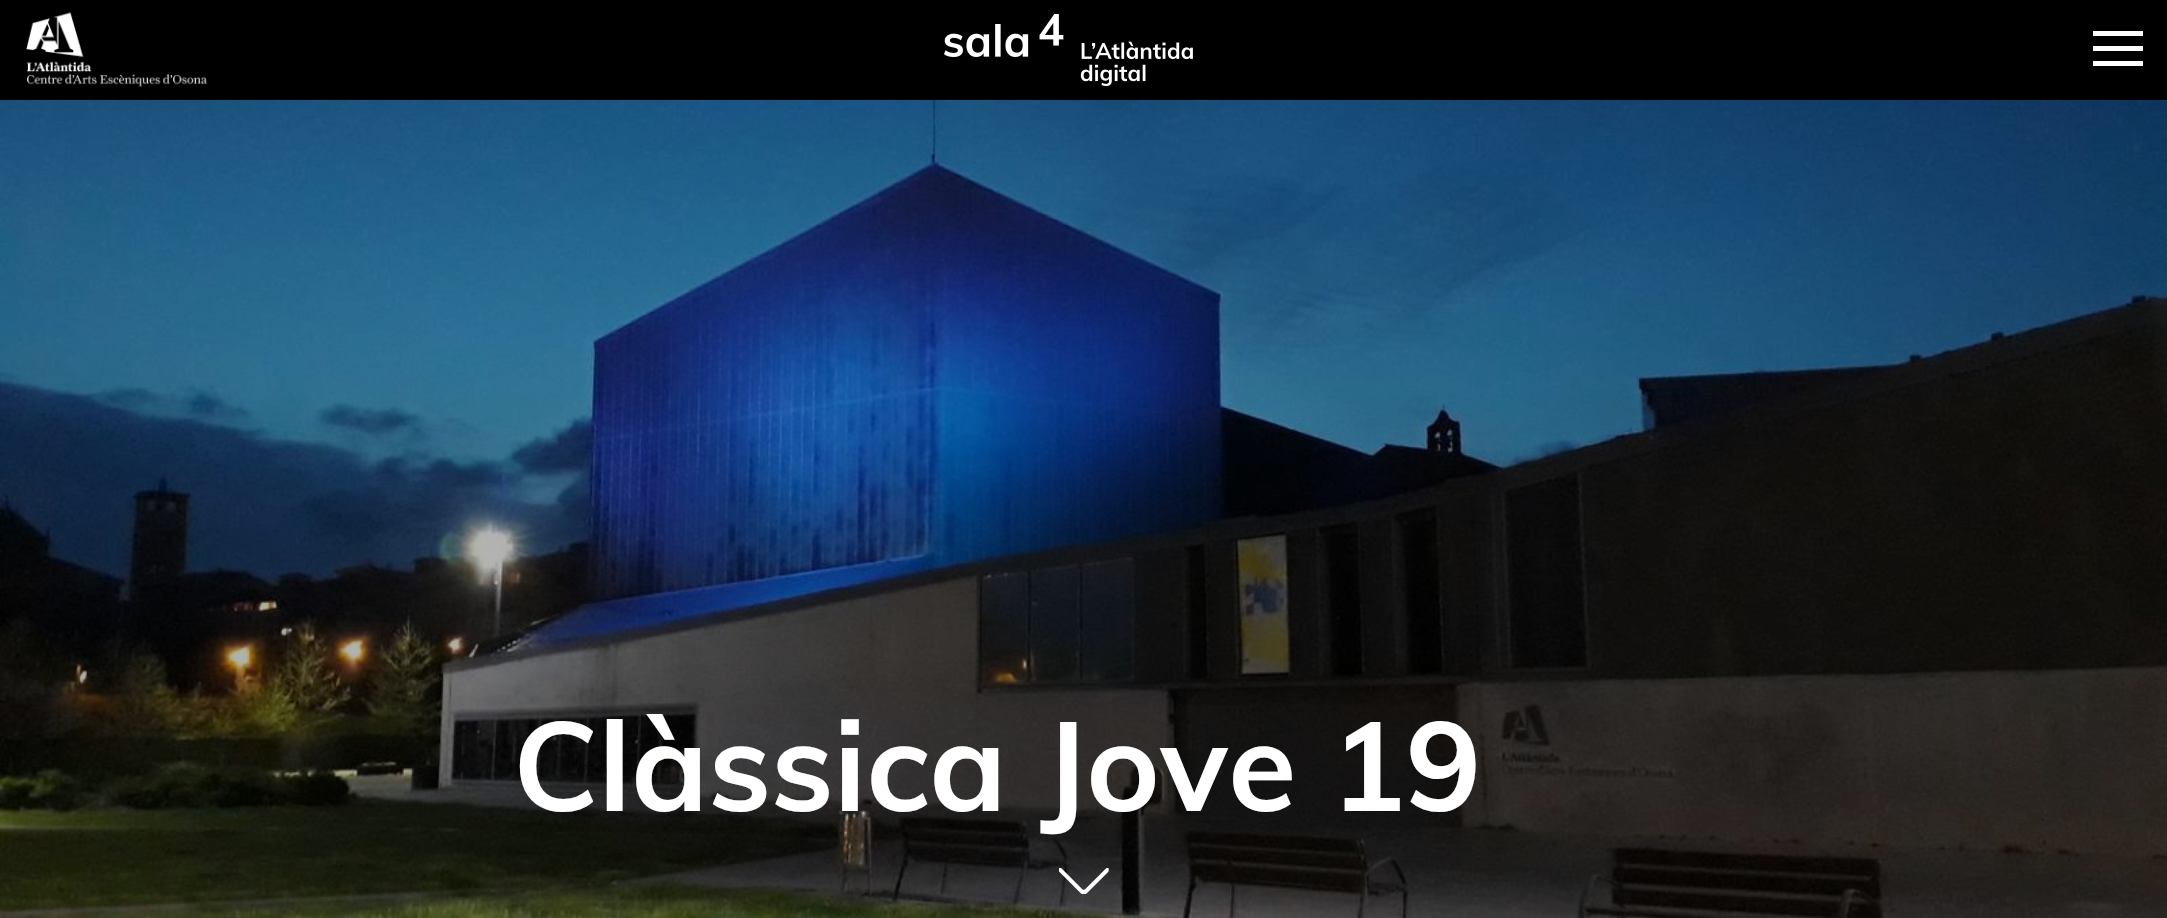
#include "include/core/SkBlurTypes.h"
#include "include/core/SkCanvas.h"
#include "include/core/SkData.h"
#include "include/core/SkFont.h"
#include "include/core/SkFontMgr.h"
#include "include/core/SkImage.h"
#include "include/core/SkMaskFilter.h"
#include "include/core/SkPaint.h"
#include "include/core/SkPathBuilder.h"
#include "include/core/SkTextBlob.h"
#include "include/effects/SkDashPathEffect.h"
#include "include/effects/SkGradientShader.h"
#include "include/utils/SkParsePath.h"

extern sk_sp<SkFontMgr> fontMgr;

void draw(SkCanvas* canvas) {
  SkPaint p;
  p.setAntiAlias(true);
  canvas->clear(SK_ColorBLACK);
  canvas->drawImageRect(SkImages::DeferredFromEncodedData(SkData::MakeFromFileName("images/1.png")), SkRect::MakeLTRB(26, 12, 208, 87), SkSamplingOptions());
  canvas->drawImageRect(SkImages::DeferredFromEncodedData(SkData::MakeFromFileName("images/2.png")), SkRect::MakeLTRB(944, 14, 1193, 86), SkSamplingOptions());
  p.setColor(SK_ColorWHITE);
  canvas->drawRect(SkRect::MakeLTRB(2093, 31, 2143, 36), p);
  canvas->drawRect(SkRect::MakeLTRB(2093, 46, 2143, 51), p);
  canvas->drawRect(SkRect::MakeLTRB(2093, 61, 2143, 66), p);
  canvas->drawImageRect(SkImages::DeferredFromEncodedData(SkData::MakeFromFileName("images/3.png")), SkRect::MakeLTRB(0, 100, 2167, 918), SkSamplingOptions());
  canvas->drawImageRect(SkImages::DeferredFromEncodedData(SkData::MakeFromFileName("images/4.png")), SkRect::MakeLTRB(1059, 868, 1109, 894), SkSamplingOptions());
  SkFont font1(fontMgr->matchFamilyStyle("Mulish", SkFontStyle::Bold()), 125);
  font1.setSubpixel(true);
  canvas->drawString("Clàssica Jove 19", 513, 811, font1, p);
}
